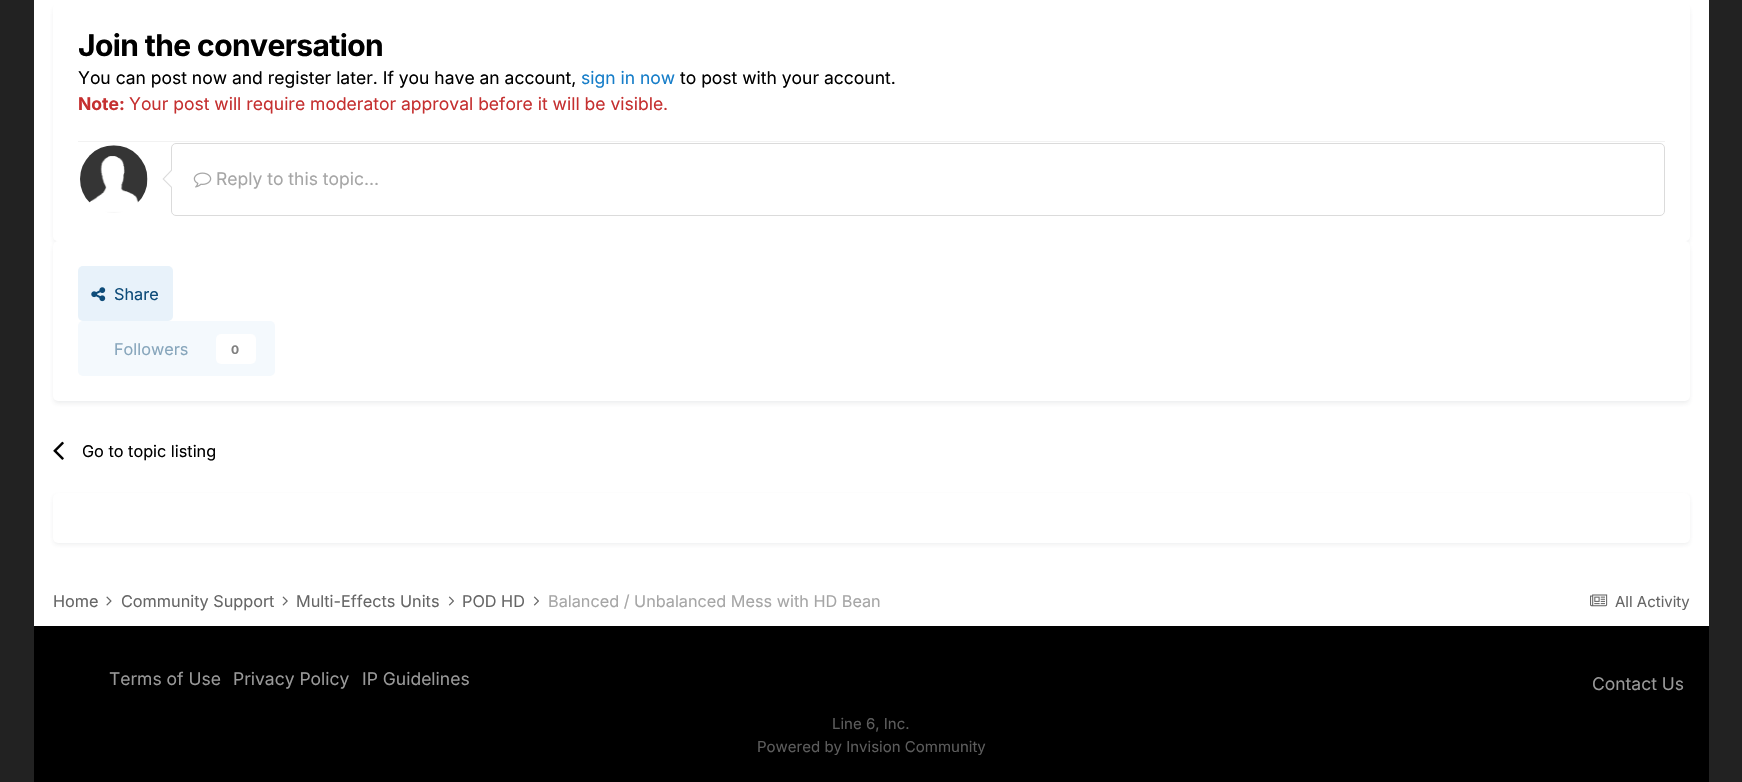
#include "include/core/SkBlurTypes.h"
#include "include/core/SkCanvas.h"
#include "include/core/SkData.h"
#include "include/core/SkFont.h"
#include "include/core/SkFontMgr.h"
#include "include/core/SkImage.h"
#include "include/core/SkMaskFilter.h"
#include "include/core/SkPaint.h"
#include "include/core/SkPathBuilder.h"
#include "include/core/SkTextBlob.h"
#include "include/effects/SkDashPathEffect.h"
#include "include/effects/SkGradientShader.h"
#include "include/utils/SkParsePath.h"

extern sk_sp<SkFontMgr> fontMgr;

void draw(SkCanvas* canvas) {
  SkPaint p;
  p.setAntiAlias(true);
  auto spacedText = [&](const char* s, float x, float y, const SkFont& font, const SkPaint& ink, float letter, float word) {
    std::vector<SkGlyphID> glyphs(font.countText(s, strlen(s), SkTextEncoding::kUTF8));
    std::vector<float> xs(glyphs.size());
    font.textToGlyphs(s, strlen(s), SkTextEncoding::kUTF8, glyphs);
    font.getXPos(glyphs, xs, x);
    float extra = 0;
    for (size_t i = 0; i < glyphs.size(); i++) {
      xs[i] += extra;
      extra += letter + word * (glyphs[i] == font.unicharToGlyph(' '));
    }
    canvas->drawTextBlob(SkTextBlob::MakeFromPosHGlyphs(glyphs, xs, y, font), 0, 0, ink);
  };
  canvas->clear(SkColorSetRGB(34, 34, 34));
  p.setColor(SK_ColorWHITE);
  canvas->drawRect(SkRect::MakeLTRB(34, 0, 1709, 626), p);
  canvas->save();
  canvas->clipPath(SkPathBuilder(SkPathFillType::kEvenOdd).moveTo(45, 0).lineTo(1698, 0).lineTo(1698, 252).lineTo(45, 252).close().moveTo(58, 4).lineTo(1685, 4).cubicTo(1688, 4, 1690, 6, 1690, 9).lineTo(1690, 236).cubicTo(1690, 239, 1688, 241, 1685, 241).lineTo(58, 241).cubicTo(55, 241, 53, 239, 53, 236).lineTo(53, 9).cubicTo(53, 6, 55, 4, 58, 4).close().detach(), true);
  p.setColor(SkColorSetARGB(26, 45, 55, 72));
  p.setMaskFilter(SkMaskFilter::MakeBlur(kNormal_SkBlurStyle, 2.5f));
  canvas->drawRoundRect(SkRect::MakeLTRB(54, 8, 1689, 243), 4, 4, p);
  p.setMaskFilter(nullptr);
  canvas->restore();
  p.setColor(SkColorSetRGB(242, 242, 242));
  canvas->drawRect(SkRect::MakeLTRB(78, 141, 1665, 142), p);
  canvas->drawImageRect(SkImages::DeferredFromEncodedData(SkData::MakeFromFileName("images/1.png")), SkRect::MakeLTRB(80, 145, 148, 213), SkSamplingOptions());
  p.setStyle(SkPaint::kStroke_Style);
  p.setStrokeWidth(1);
  p.setColor(SkColorSetRGB(219, 219, 219));
  canvas->drawRoundRect(SkRect::MakeLTRB(171.5f, 143.5f, 1664.5f, 215.5f), 4.5f, 4.5f, p);
  p.setStyle(SkPaint::kFill_Style);
  canvas->drawPath(SkPathBuilder().moveTo(171, 170).lineTo(171, 187.5f).lineTo(162.5f, 179).close().detach(), p);
  p.setColor(SK_ColorWHITE);
  canvas->drawPath(SkPathBuilder().moveTo(172.5f, 170).lineTo(172.5f, 187.5f).lineTo(164, 179).close().detach(), p);
  canvas->drawImageRect(SkImages::DeferredFromEncodedData(SkData::MakeFromFileName("images/2.png")), SkRect::MakeLTRB(193, 172, 212, 188), SkSamplingOptions());
  p.setColor(SkColorSetARGB(26, 45, 55, 72));
  p.setMaskFilter(SkMaskFilter::MakeBlur(kNormal_SkBlurStyle, 2.5f));
  canvas->drawRoundRect(SkRect::MakeLTRB(54, 245, 1689, 403), 4, 4, p);
  p.setMaskFilter(nullptr);
  p.setColor(SK_ColorWHITE);
  canvas->drawRoundRect(SkRect::MakeLTRB(53, 241, 1690, 401), 5, 5, p);
  p.setColor(SkColorSetRGB(232, 242, 250));
  canvas->drawRoundRect(SkRect::MakeLTRB(78, 266, 173, 321), 5, 5, p);
  canvas->drawImageRect(SkImages::DeferredFromEncodedData(SkData::MakeFromFileName("images/3.png")), SkRect::MakeLTRB(91, 287, 106, 302), SkSamplingOptions());
  p.setColor(SkColorSetRGB(244, 249, 253));
  canvas->drawRoundRect(SkRect::MakeLTRB(78, 321, 275, 376), 5, 5, p);
  p.setColor(SK_ColorWHITE);
  canvas->drawRoundRect(SkRect::MakeLTRB(216, 334, 256, 364), 5, 5, p);
  canvas->drawImageRect(SkImages::DeferredFromEncodedData(SkData::MakeFromFileName("images/4.png")), SkRect::MakeLTRB(53, 441, 64, 460), SkSamplingOptions());
  p.setColor(SkColorSetARGB(26, 45, 55, 72));
  p.setMaskFilter(SkMaskFilter::MakeBlur(kNormal_SkBlurStyle, 2.5f));
  canvas->drawRoundRect(SkRect::MakeLTRB(54, 496, 1689, 544), 4, 4, p);
  p.setMaskFilter(nullptr);
  p.setColor(SK_ColorWHITE);
  canvas->drawRoundRect(SkRect::MakeLTRB(53, 493, 1690, 543), 5, 5, p);
  canvas->drawImageRect(SkImages::DeferredFromEncodedData(SkData::MakeFromFileName("images/5.png")), SkRect::MakeLTRB(106, 596, 112, 606), SkSamplingOptions());
  canvas->drawImageRect(SkImages::DeferredFromEncodedData(SkData::MakeFromFileName("images/6.png")), SkRect::MakeLTRB(282, 596, 288, 606), SkSamplingOptions());
  canvas->drawImageRect(SkImages::DeferredFromEncodedData(SkData::MakeFromFileName("images/7.png")), SkRect::MakeLTRB(448, 596, 454, 606), SkSamplingOptions());
  canvas->drawImageRect(SkImages::DeferredFromEncodedData(SkData::MakeFromFileName("images/7.png")), SkRect::MakeLTRB(533, 596, 539, 606), SkSamplingOptions());
  canvas->drawImageRect(SkImages::DeferredFromEncodedData(SkData::MakeFromFileName("images/8.png")), SkRect::MakeLTRB(1590, 594, 1608, 607), SkSamplingOptions());
  p.setColor(SK_ColorBLACK);
  canvas->drawRect(SkRect::MakeLTRB(34, 626, 1709, 782), p);
  SkFont font1(fontMgr->matchFamilyStyle("Inter", SkFontStyle::Bold()), 30);
  font1.setSubpixel(true);
  spacedText("Join the conversation", 78, 56, font1, p, -0.6f, 0);
  SkFont font2(fontMgr->matchFamilyStyle("Inter", SkFontStyle::Normal()), 17.5f);
  font2.setSubpixel(true);
  canvas->drawString("You can post now and register later. If you have an account,", 78, 84, font2, p);
  p.setColor(SkColorSetRGB(23, 126, 201));
  canvas->drawString("sign in now", 581, 84, font2, p);
  p.setColor(SK_ColorBLACK);
  canvas->drawString("to post with your account.", 680, 84, font2, p);
  SkFont font3(fontMgr->matchFamilyStyle("Inter", SkFontStyle::Bold()), 17.5f);
  font3.setSubpixel(true);
  p.setColor(SkColorSetRGB(197, 48, 48));
  canvas->drawString("Note:", 78, 110, font3, p);
  canvas->drawString("Your post will require moderator approval before it will be visible.", 129, 110, font2, p);
  p.setColor(SkColorSetRGB(166, 166, 166));
  canvas->drawString("Reply to this topic...", 216, 185, font2, p);
  SkFont font4(fontMgr->matchFamilyStyle("Inter", SkFontStyle::Normal()), 16.25f);
  font4.setSubpixel(true);
  p.setColor(SkColorSetRGB(14, 76, 121));
  canvas->drawString("Share", 114, 300, font4, p);
  p.setColor(SkColorSetRGB(135, 166, 188));
  canvas->drawString("Followers", 114, 355, font4, p);
  SkFont font5(fontMgr->matchFamilyStyle("Inter", SkFontStyle::Bold()), 12);
  font5.setSubpixel(true);
  p.setColor(SkColorSetRGB(128, 128, 128));
  canvas->drawString("0", 231, 354, font5, p);
  p.setColor(SK_ColorBLACK);
  canvas->drawString("Go to topic listing", 82, 457, font4, p);
  p.setColor(SkColorSetRGB(102, 102, 102));
  canvas->drawString("Home", 53, 607, font4, p);
  canvas->drawString("Community Support", 121, 607, font4, p);
  canvas->drawString("Multi-Effects Units", 296, 607, font4, p);
  canvas->drawString("POD HD", 462, 607, font4, p);
  p.setColor(SkColorSetRGB(166, 166, 166));
  canvas->drawString("Balanced / Unbalanced Mess with HD Bean", 548, 607, font4, p);
  SkFont font6(fontMgr->matchFamilyStyle("Inter", SkFontStyle::Normal()), 15);
  font6.setSubpixel(true);
  p.setColor(SkColorSetRGB(102, 102, 102));
  canvas->drawString("All Activity", 1615, 607, font6, p);
  p.setColor(SkColorSetRGB(153, 153, 153));
  canvas->drawString("Terms of Use", 109, 685, font2, p);
  canvas->drawString("Privacy Policy", 233, 685, font2, p);
  canvas->drawString("IP Guidelines", 362, 685, font2, p);
  canvas->drawString("Contact Us", 1592, 690, font2, p);
  p.setColor(SkColorSetRGB(92, 92, 92));
  canvas->drawString("Line 6, Inc.", 832, 729, font6, p);
  canvas->drawString("Powered by Invision Community", 757, 752, font6, p);
}
